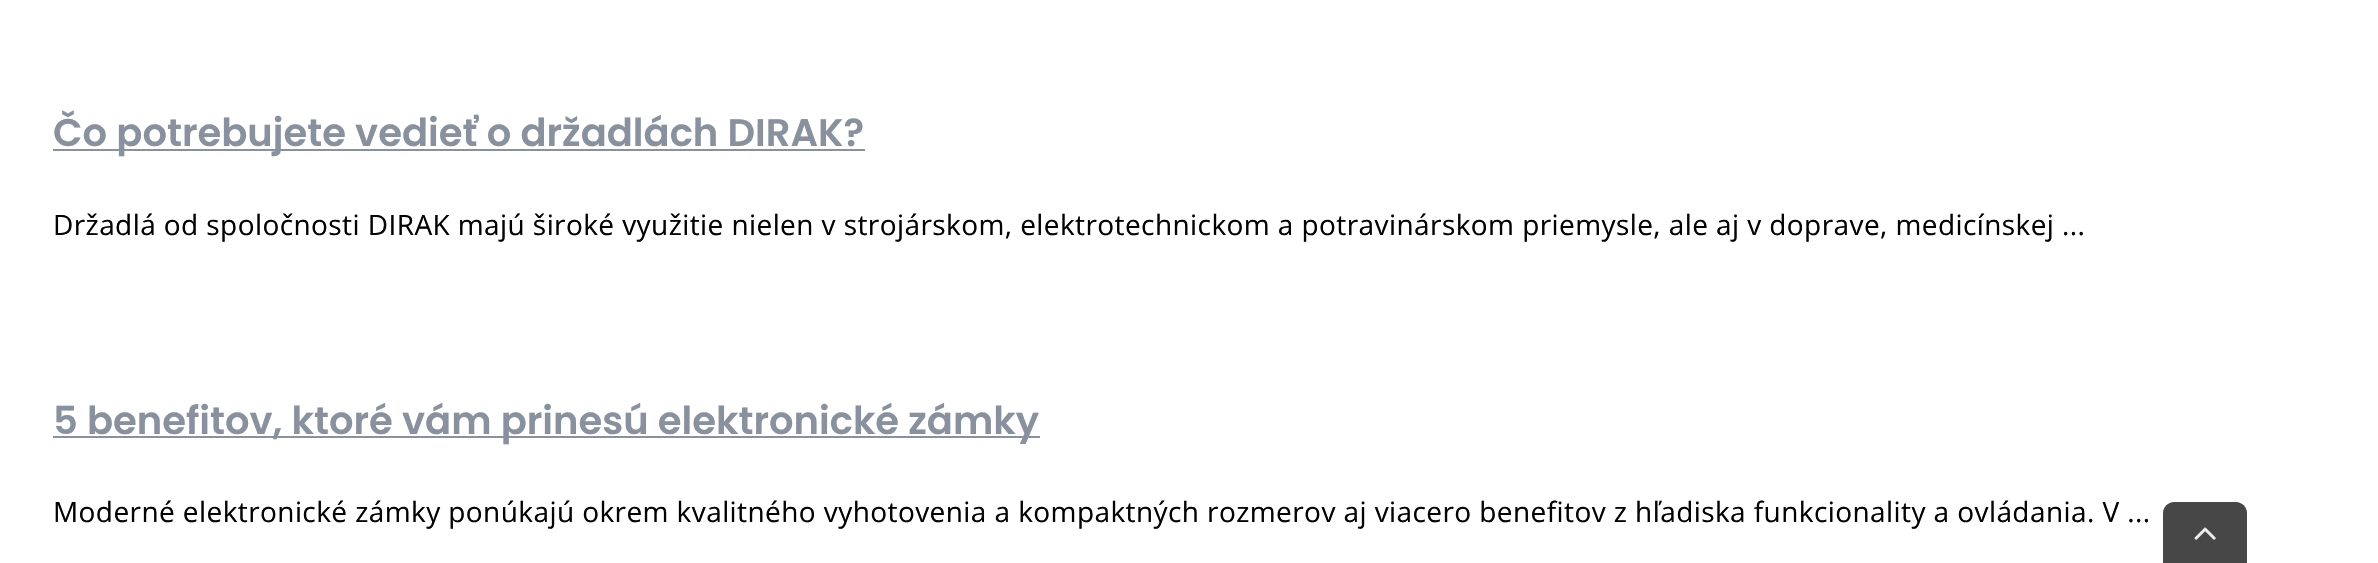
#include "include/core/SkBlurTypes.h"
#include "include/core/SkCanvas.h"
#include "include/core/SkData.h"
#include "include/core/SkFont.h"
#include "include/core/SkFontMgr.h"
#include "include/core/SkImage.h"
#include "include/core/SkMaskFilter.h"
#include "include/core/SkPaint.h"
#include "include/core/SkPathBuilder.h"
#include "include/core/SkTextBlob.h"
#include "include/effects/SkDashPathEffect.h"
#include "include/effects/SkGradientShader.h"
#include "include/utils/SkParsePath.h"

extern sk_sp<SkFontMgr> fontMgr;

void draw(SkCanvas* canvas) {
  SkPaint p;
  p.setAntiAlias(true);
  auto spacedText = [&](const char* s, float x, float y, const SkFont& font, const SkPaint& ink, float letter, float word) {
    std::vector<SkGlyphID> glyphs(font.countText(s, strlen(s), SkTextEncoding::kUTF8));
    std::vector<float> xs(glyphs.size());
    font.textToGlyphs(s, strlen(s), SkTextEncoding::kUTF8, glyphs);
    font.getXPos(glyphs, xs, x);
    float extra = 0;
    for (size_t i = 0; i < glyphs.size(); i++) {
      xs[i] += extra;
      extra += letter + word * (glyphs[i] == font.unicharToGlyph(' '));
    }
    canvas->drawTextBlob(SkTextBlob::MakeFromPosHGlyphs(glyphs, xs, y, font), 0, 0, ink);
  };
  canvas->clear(SK_ColorWHITE);
  p.setColor(SkColorSetRGB(136, 145, 157));
  canvas->drawRect(SkRect::MakeLTRB(53, 149, 865, 151), p);
  canvas->drawRect(SkRect::MakeLTRB(53, 436, 1040, 438), p);
  p.setColor(SkColorSetRGB(71, 71, 71));
  canvas->drawPath(SkPathBuilder().moveTo(2174, 502).lineTo(2236, 502).cubicTo(2242, 502, 2247, 507, 2247, 513).lineTo(2247, 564).lineTo(2163, 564).lineTo(2163, 513).cubicTo(2163, 507, 2168, 502, 2174, 502).close().detach(), p);
  canvas->drawImageRect(SkImages::DeferredFromEncodedData(SkData::MakeFromFileName("images/1.png")), SkRect::MakeLTRB(2194, 527, 2216, 540), SkSamplingOptions());
  SkFont font1(fontMgr->matchFamilyStyle("Poppins", SkFontStyle(600, SkFontStyle::kNormal_Width, SkFontStyle::kUpright_Slant)), 38.5f);
  font1.setSubpixel(true);
  p.setColor(SkColorSetRGB(136, 145, 157));
  canvas->drawString("Čo potrebujete vedieť o držadlách DIRAK?", 53, 146, font1, p);
  SkFont font2(fontMgr->matchFamilyStyle("Open Sans", SkFontStyle::Normal()), 28);
  font2.setSubpixel(true);
  p.setColor(SkColorSetRGB(2, 2, 2));
  spacedText("Držadlá od spoločnosti DIRAK majú široké využitie nielen v strojárskom, elektrotechnickom a potravinárskom priemysle, ale aj v doprave, medicínskej ...", 53, 235, font2, p, 0.42f, 0);
  p.setColor(SkColorSetRGB(136, 145, 157));
  canvas->drawString("5 benefitov, ktoré vám prinesú elektronické zámky", 53, 434, font1, p);
  p.setColor(SkColorSetRGB(2, 2, 2));
  spacedText("Moderné elektronické zámky ponúkajú okrem kvalitného vyhotovenia a kompaktných rozmerov aj viacero benefitov z hľadiska funkcionality a ovládania. V ...", 53, 522, font2, p, 0.42f, 0);
}
